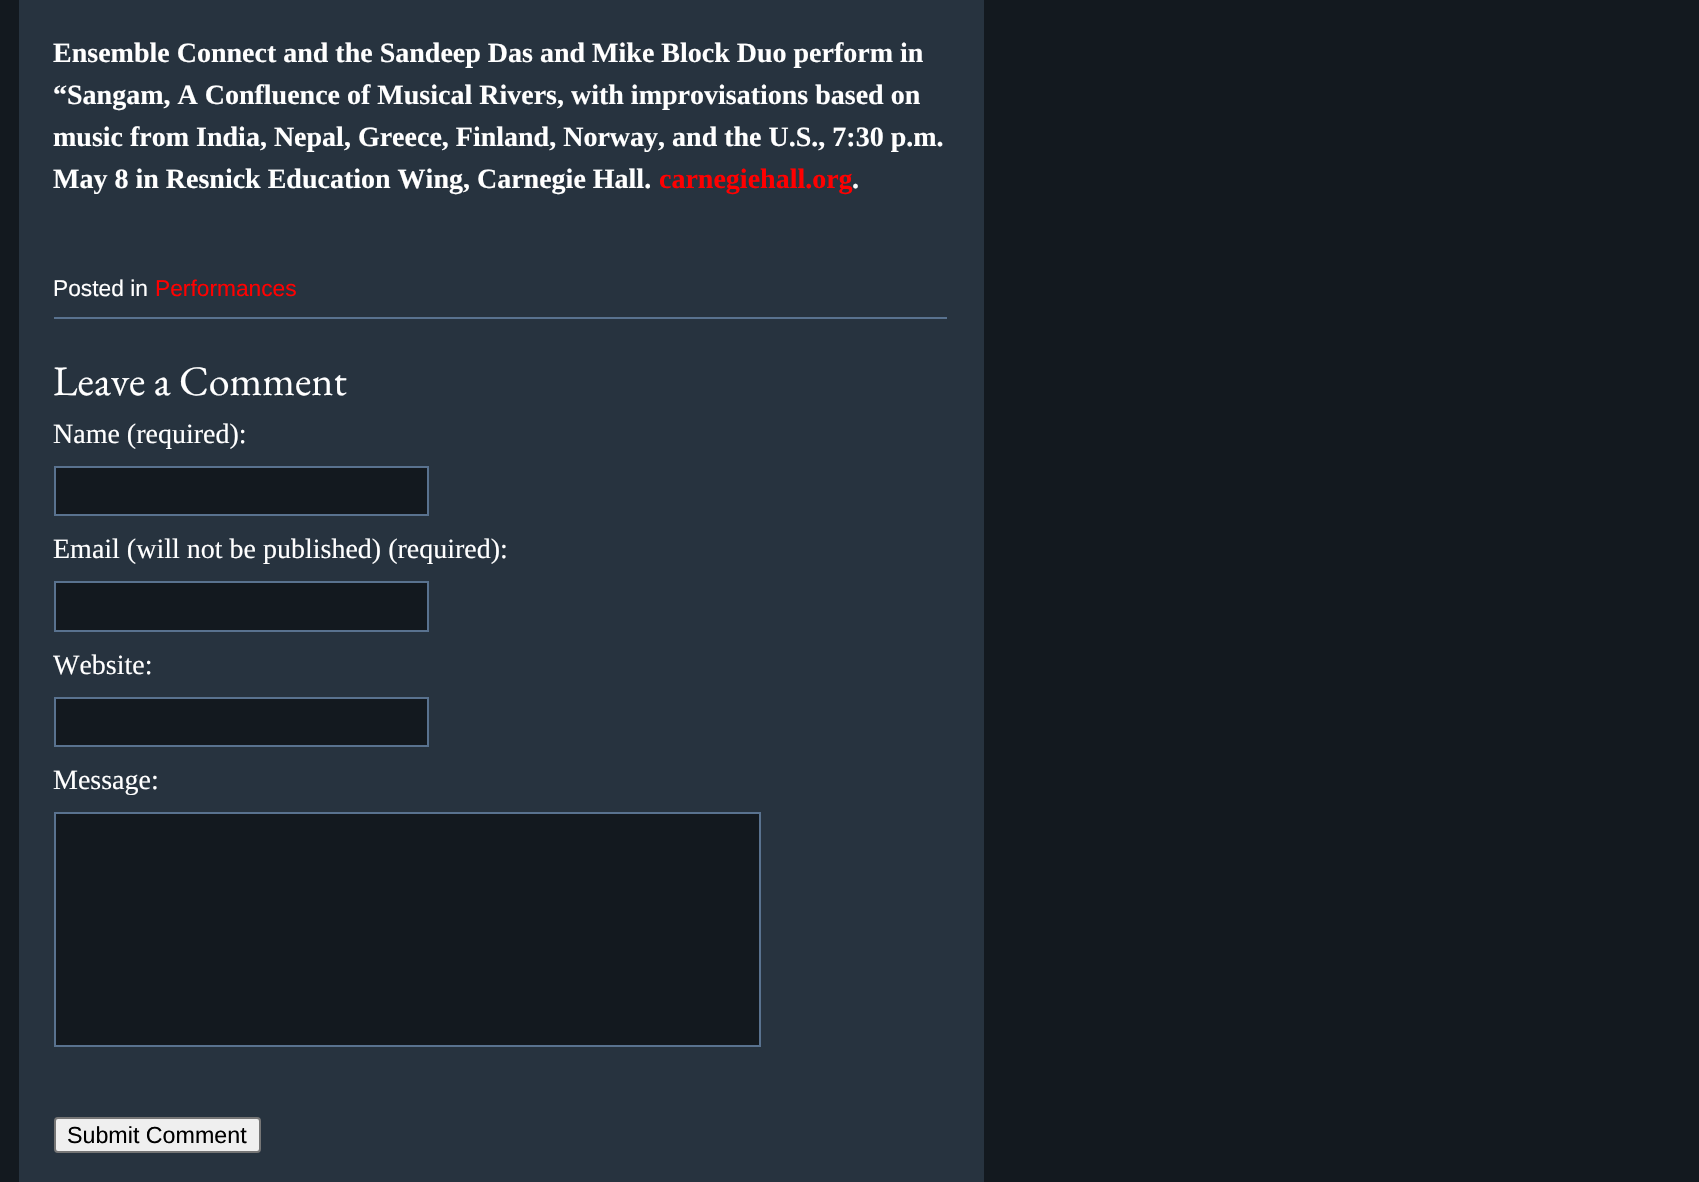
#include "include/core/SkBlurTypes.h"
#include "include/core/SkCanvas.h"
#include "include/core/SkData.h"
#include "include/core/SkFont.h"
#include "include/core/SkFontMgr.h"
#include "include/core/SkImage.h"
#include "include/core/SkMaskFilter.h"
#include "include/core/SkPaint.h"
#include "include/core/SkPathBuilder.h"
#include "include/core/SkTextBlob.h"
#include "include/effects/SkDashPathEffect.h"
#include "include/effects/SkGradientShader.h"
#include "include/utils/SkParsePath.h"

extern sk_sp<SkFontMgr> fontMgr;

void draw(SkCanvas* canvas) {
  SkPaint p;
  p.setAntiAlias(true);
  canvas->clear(SkColorSetRGB(19, 25, 31));
  p.setColor(SkColorSetRGB(39, 51, 63));
  canvas->drawRect(SkRect::MakeLTRB(19, 0, 984, 1182), p);
  p.setColor(SkColorSetRGB(89, 114, 143));
  canvas->drawRect(SkRect::MakeLTRB(54, 317, 947, 319), p);
  p.setColor(SkColorSetRGB(19, 25, 31));
  canvas->drawRect(SkRect::MakeLTRB(55, 467, 428, 515), p);
  p.setStyle(SkPaint::kStroke_Style);
  p.setStrokeWidth(2);
  p.setColor(SkColorSetRGB(89, 114, 143));
  canvas->drawRect(SkRect::MakeLTRB(55, 467, 428, 515), p);
  p.setStyle(SkPaint::kFill_Style);
  p.setColor(SkColorSetRGB(19, 25, 31));
  canvas->drawRect(SkRect::MakeLTRB(55, 582, 428, 631), p);
  p.setStyle(SkPaint::kStroke_Style);
  p.setColor(SkColorSetRGB(89, 114, 143));
  canvas->drawRect(SkRect::MakeLTRB(55, 582, 428, 631), p);
  p.setStyle(SkPaint::kFill_Style);
  p.setColor(SkColorSetRGB(19, 25, 31));
  canvas->drawRect(SkRect::MakeLTRB(55, 698, 428, 746), p);
  p.setStyle(SkPaint::kStroke_Style);
  p.setColor(SkColorSetRGB(89, 114, 143));
  canvas->drawRect(SkRect::MakeLTRB(55, 698, 428, 746), p);
  p.setStyle(SkPaint::kFill_Style);
  p.setColor(SkColorSetRGB(19, 25, 31));
  canvas->drawRect(SkRect::MakeLTRB(55, 813, 760, 1046), p);
  p.setStyle(SkPaint::kStroke_Style);
  p.setColor(SkColorSetRGB(89, 114, 143));
  canvas->drawRect(SkRect::MakeLTRB(55, 813, 760, 1046), p);
  p.setStyle(SkPaint::kFill_Style);
  p.setColor(SkColorSetRGB(239, 239, 239));
  canvas->drawRoundRect(SkRect::MakeLTRB(55, 1118, 260, 1152), 3, 3, p);
  p.setStyle(SkPaint::kStroke_Style);
  p.setColor(SkColorSetRGB(118, 118, 118));
  canvas->drawRoundRect(SkRect::MakeLTRB(55, 1118, 260, 1152), 3, 3, p);
  SkFont font1(fontMgr->matchFamilyStyle("Liberation Serif", SkFontStyle::Bold()), 28);
  font1.setSubpixel(true);
  p.setStyle(SkPaint::kFill_Style);
  p.setColor(SK_ColorWHITE);
  canvas->drawString("Ensemble Connect and the Sandeep Das and Mike Block Duo perform in", 53, 62, font1, p);
  canvas->drawString("“Sangam, A Confluence of Musical Rivers, with improvisations based on", 53, 104, font1, p);
  canvas->drawString("music from India, Nepal, Greece, Finland, Norway, and the U.S., 7:30 p.m.", 53, 146, font1, p);
  canvas->drawString("May 8 in Resnick Education Wing, Carnegie Hall.", 53, 188, font1, p);
  p.setColor(SkColorSetRGB(255, 0, 0));
  canvas->drawString("carnegiehall.org", 659, 188, font1, p);
  p.setColor(SK_ColorWHITE);
  canvas->drawString(".", 852, 188, font1, p);
  SkFont font2(fontMgr->matchFamilyStyle("Liberation Sans", SkFontStyle::Normal()), 22.75f);
  font2.setSubpixel(true);
  canvas->drawString("Posted in", 53, 296, font2, p);
  p.setColor(SkColorSetRGB(255, 0, 0));
  canvas->drawString("Performances", 155, 296, font2, p);
  SkFont font3(fontMgr->matchFamilyStyle("EB Garamond", SkFontStyle::Normal()), 42);
  font3.setSubpixel(true);
  p.setColor(SK_ColorWHITE);
  canvas->drawString("Leave a Comment", 53, 395, font3, p);
  SkFont font4(fontMgr->matchFamilyStyle("Liberation Serif", SkFontStyle::Normal()), 28);
  font4.setSubpixel(true);
  canvas->drawString("Name (required):", 53, 443, font4, p);
  canvas->drawString("Email (will not be published) (required):", 53, 558, font4, p);
  canvas->drawString("Website:", 53, 674, font4, p);
  canvas->drawString("Message:", 53, 789, font4, p);
  SkFont font5(fontMgr->matchFamilyStyle("Liberation Sans", SkFontStyle::Normal()), 23.25f);
  font5.setSubpixel(true);
  p.setColor(SK_ColorBLACK);
  canvas->drawString("Submit Comment", 67, 1143, font5, p);
}
